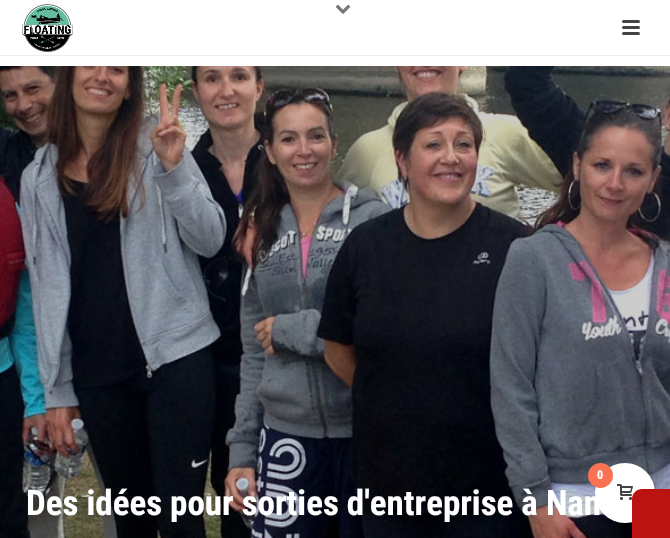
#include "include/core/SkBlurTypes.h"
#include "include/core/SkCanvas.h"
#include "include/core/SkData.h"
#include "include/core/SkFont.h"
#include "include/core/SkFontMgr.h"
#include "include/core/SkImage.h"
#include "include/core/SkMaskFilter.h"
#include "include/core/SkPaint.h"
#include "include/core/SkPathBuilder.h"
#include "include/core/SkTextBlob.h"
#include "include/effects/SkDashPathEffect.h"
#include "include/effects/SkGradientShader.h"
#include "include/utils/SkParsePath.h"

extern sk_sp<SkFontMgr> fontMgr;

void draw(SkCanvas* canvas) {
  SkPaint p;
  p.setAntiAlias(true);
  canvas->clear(SK_ColorWHITE);
  canvas->drawImageRect(SkImages::DeferredFromEncodedData(SkData::MakeFromFileName("images/4.png")), SkRect::MakeLTRB(0, 66, 670, 538), SkSamplingOptions());
  p.setColor(SkColorSetARGB(51, 0, 0, 0));
  p.setMaskFilter(SkMaskFilter::MakeBlur(kNormal_SkBlurStyle, 1.5f));
  canvas->drawRoundRect(SkRect::MakeLTRB(596, 464, 656, 524), 30, 30, p);
  p.setMaskFilter(nullptr);
  p.setColor(SK_ColorWHITE);
  canvas->drawCircle(625, 493, 30, p);
  p.setColor(SkColorSetRGB(249, 115, 82));
  canvas->drawCircle(600.5f, 475.5f, 12.5f, p);
  canvas->drawImageRect(SkImages::DeferredFromEncodedData(SkData::MakeFromFileName("images/1.png")), SkRect::MakeLTRB(617, 484, 633, 500), SkSamplingOptions());
  p.setColor(SkColorSetRGB(237, 237, 237));
  canvas->drawRect(SkRect::MakeLTRB(0, 55, 670, 56), p);
  canvas->drawImageRect(SkImages::DeferredFromEncodedData(SkData::MakeFromFileName("images/2.png")), SkRect::MakeLTRB(22, 4, 73, 53), SkSamplingOptions());
  canvas->drawImageRect(SkImages::DeferredFromEncodedData(SkData::MakeFromFileName("images/3.png")), SkRect::MakeLTRB(335, 4, 351, 14), SkSamplingOptions());
  p.setColor(SkColorSetRGB(68, 68, 68));
  canvas->drawRoundRect(SkRect::MakeLTRB(622, 20, 640, 23), 1.5f, 1.5f, p);
  canvas->drawRoundRect(SkRect::MakeLTRB(622, 26, 640, 29), 1.5f, 1.5f, p);
  canvas->drawRoundRect(SkRect::MakeLTRB(622, 32, 640, 35), 1.5f, 1.5f, p);
  p.setColor(SkColorSetRGB(187, 19, 17));
  canvas->drawPath(SkPathBuilder().moveTo(632, 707).lineTo(632, 499).cubicTo(632, 493, 637, 489, 642, 489).lineTo(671, 489).lineTo(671, 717).lineTo(642, 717).cubicTo(637, 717, 632, 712, 632, 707).close().detach(), p);
  SkFont font1(fontMgr->matchFamilyStyle("Roboto Condensed", SkFontStyle::Bold()), 12);
  font1.setSubpixel(true);
  p.setColor(SK_ColorWHITE);
  canvas->drawString("0", 597, 479, font1, p);
  SkFont font2(fontMgr->matchFamilyStyle("Roboto Condensed", SkFontStyle::Bold()), 35);
  font2.setSubpixel(true);
  canvas->drawString("Des idées pour sorties d'entreprise à Nan", 26, 515, font2, p);
}
